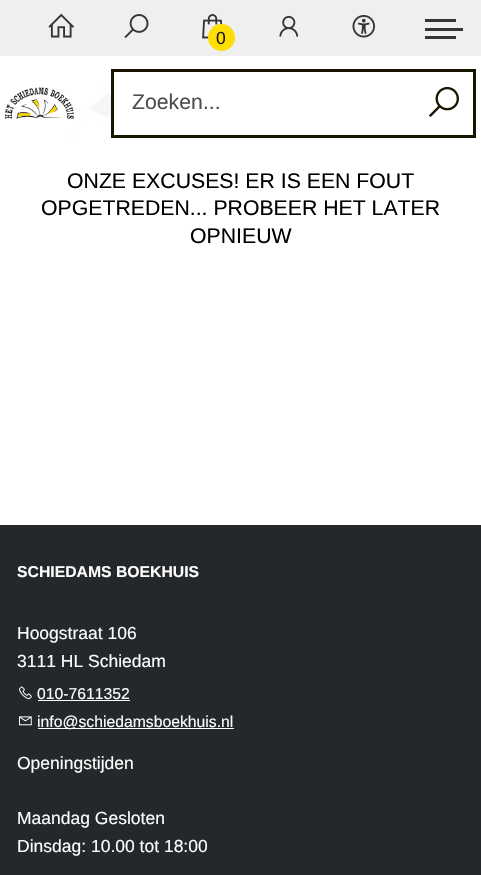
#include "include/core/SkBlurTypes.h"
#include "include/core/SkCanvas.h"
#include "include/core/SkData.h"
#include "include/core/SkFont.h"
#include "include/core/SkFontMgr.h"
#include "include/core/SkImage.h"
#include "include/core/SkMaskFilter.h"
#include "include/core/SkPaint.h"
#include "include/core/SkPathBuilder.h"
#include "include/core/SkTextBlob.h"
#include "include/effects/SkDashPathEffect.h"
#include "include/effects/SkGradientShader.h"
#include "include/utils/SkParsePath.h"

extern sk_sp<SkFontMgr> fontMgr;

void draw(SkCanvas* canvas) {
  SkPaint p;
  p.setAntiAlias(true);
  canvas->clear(SK_ColorWHITE);
  canvas->drawImageRect(SkImages::DeferredFromEncodedData(SkData::MakeFromFileName("images/1.png")), SkRect::MakeLTRB(70, 78, 112, 138), SkSamplingOptions());
  p.setColor(SkColorSetRGB(239, 239, 239));
  canvas->drawRect(SkRect::MakeLTRB(0, 0, 481, 56), p);
  canvas->drawImageRect(SkImages::DeferredFromEncodedData(SkData::MakeFromFileName("images/2.png")), SkRect::MakeLTRB(48, 13, 74, 38), SkSamplingOptions());
  canvas->drawImageRect(SkImages::DeferredFromEncodedData(SkData::MakeFromFileName("images/3.png")), SkRect::MakeLTRB(124, 14, 149, 39), SkSamplingOptions());
  canvas->drawImageRect(SkImages::DeferredFromEncodedData(SkData::MakeFromFileName("images/4.png")), SkRect::MakeLTRB(202, 14, 223, 39), SkSamplingOptions());
  p.setColor(SkColorSetRGB(255, 223, 3));
  canvas->drawCircle(221.5f, 37.5f, 13.5f, p);
  canvas->drawImageRect(SkImages::DeferredFromEncodedData(SkData::MakeFromFileName("images/5.png")), SkRect::MakeLTRB(279, 15, 299, 37), SkSamplingOptions());
  canvas->drawImageRect(SkImages::DeferredFromEncodedData(SkData::MakeFromFileName("images/6.png")), SkRect::MakeLTRB(352, 15, 375, 38), SkSamplingOptions());
  p.setColor(SkColorSetRGB(53, 53, 53));
  canvas->drawRect(SkRect::MakeLTRB(425, 28, 463, 31), p);
  canvas->drawRect(SkRect::MakeLTRB(425, 19, 456, 22), p);
  canvas->drawRect(SkRect::MakeLTRB(425, 36, 456, 39), p);
  canvas->drawImageRect(SkImages::DeferredFromEncodedData(SkData::MakeFromFileName("images/7.png")), SkRect::MakeLTRB(5, 87, 74, 119), SkSamplingOptions());
  p.setColor(SK_ColorWHITE);
  canvas->drawRect(SkRect::MakeLTRB(112.5f, 70.5f, 474.5f, 136.5f), p);
  p.setStyle(SkPaint::kStroke_Style);
  p.setStrokeWidth(3);
  p.setColor(SkColorSetRGB(25, 22, 0));
  canvas->drawRect(SkRect::MakeLTRB(112.5f, 70.5f, 474.5f, 136.5f), p);
  canvas->drawImageRect(SkImages::DeferredFromEncodedData(SkData::MakeFromFileName("images/8.png")), SkRect::MakeLTRB(428, 86, 459, 117), SkSamplingOptions());
  p.setStyle(SkPaint::kFill_Style);
  p.setColor(SkColorSetRGB(36, 40, 43));
  canvas->drawRect(SkRect::MakeLTRB(0, 525, 481, 875), p);
  canvas->drawImageRect(SkImages::DeferredFromEncodedData(SkData::MakeFromFileName("images/9.png")), SkRect::MakeLTRB(19, 686, 32, 700), SkSamplingOptions());
  p.setColor(SkColorSetRGB(253, 253, 253));
  canvas->drawRect(SkRect::MakeLTRB(38, 700, 130, 701), p);
  canvas->drawImageRect(SkImages::DeferredFromEncodedData(SkData::MakeFromFileName("images/10.png")), SkRect::MakeLTRB(18, 716, 32, 726), SkSamplingOptions());
  canvas->drawRect(SkRect::MakeLTRB(38, 728, 234, 729), p);
  SkFont font1(fontMgr->matchFamilyStyle("Liberation Sans", SkFontStyle::Normal()), 17.5f);
  font1.setSubpixel(true);
  p.setColor(SkColorSetRGB(20, 20, 20));
  canvas->drawString("0", 216, 44, font1, p);
  SkFont font2(fontMgr->matchFamilyStyle("Liberation Sans", SkFontStyle::Normal()), 21.25f);
  font2.setSubpixel(true);
  p.setColor(SkColorSetRGB(77, 77, 77));
  canvas->drawString("Zoeken...", 132, 109, font2, p);
  p.setColor(SK_ColorBLACK);
  canvas->drawString("ONZE EXCUSES! ER IS EEN FOUT", 67, 188, font2, p);
  canvas->drawString("OPGETREDEN... PROBEER HET LATER", 41, 215, font2, p);
  canvas->drawString("OPNIEUW", 190, 243, font2, p);
  SkFont font3(fontMgr->matchFamilyStyle("Liberation Sans", SkFontStyle::Bold()), 15.75f);
  font3.setSubpixel(true);
  p.setColor(SkColorSetRGB(253, 253, 253));
  canvas->drawString("SCHIEDAMS BOEKHUIS", 17, 577, font3, p);
  canvas->drawString("Hoogstraat 106", 17, 639, font1, p);
  canvas->drawString("3111 HL Schiedam", 17, 667, font1, p);
  SkFont font4(fontMgr->matchFamilyStyle("Liberation Sans", SkFontStyle::Normal()), 15.75f);
  font4.setSubpixel(true);
  canvas->drawString("010-7611352", 37, 699, font4, p);
  canvas->drawString("info@schiedamsboekhuis.nl", 37, 727, font4, p);
  canvas->drawString("Openingstijden", 17, 769, font1, p);
  canvas->drawString("Maandag Gesloten", 17, 824, font1, p);
  canvas->drawString("Dinsdag: 10.00 tot 18:00", 17, 852, font1, p);
}
